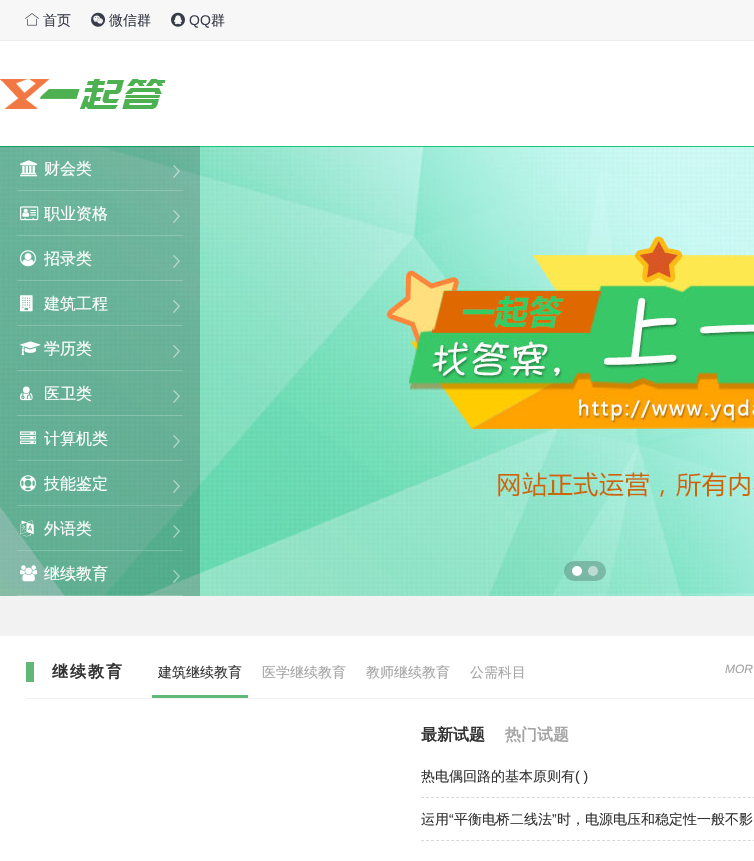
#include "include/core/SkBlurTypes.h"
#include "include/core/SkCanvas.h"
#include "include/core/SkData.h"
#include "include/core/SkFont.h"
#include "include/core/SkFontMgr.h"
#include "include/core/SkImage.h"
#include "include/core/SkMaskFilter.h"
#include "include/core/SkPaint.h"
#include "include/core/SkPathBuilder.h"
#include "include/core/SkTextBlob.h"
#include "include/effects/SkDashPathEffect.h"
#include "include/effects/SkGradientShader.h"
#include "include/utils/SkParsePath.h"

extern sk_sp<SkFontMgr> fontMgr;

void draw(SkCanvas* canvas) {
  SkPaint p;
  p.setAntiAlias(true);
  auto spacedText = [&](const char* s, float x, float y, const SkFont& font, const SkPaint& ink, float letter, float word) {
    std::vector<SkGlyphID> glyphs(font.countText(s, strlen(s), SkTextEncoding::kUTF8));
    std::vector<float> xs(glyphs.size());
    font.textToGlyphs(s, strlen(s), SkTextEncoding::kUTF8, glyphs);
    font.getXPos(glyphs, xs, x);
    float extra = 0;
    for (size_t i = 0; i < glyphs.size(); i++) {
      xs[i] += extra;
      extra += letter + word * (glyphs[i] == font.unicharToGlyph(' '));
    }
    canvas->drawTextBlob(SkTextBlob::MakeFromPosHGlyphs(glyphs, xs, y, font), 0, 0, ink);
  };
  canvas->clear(SkColorSetRGB(242, 242, 242));
  p.setColor(SkColorSetRGB(247, 247, 247));
  canvas->drawRect(SkRect::MakeLTRB(0, 0, 754, 40), p);
  p.setColor(SkColorSetRGB(235, 235, 235));
  canvas->drawRect(SkRect::MakeLTRB(0, 40, 754, 41), p);
  canvas->drawImageRect(SkImages::DeferredFromEncodedData(SkData::MakeFromFileName("images/1.png")), SkRect::MakeLTRB(25, 13, 39, 26), SkSamplingOptions());
  canvas->drawImageRect(SkImages::DeferredFromEncodedData(SkData::MakeFromFileName("images/2.png")), SkRect::MakeLTRB(91, 12, 106, 27), SkSamplingOptions());
  canvas->drawImageRect(SkImages::DeferredFromEncodedData(SkData::MakeFromFileName("images/3.png")), SkRect::MakeLTRB(171, 12, 185, 27), SkSamplingOptions());
  p.setColor(SK_ColorWHITE);
  canvas->drawRect(SkRect::MakeLTRB(0, 41, 754, 146), p);
  canvas->drawImageRect(SkImages::DeferredFromEncodedData(SkData::MakeFromFileName("images/4.png")), SkRect::MakeLTRB(0, 79, 165, 109), SkSamplingOptions());
  p.setColor(SkColorSetRGB(26, 198, 124));
  canvas->drawRect(SkRect::MakeLTRB(0, 146, 754, 147), p);
  canvas->drawImageRect(SkImages::DeferredFromEncodedData(SkData::MakeFromFileName("images/5.png")), SkRect::MakeLTRB(0, 147, 754, 596), SkSamplingOptions());
  p.setColor(SkColorSetARGB(51, 0, 0, 0));
  canvas->drawRoundRect(SkRect::MakeLTRB(564, 561, 606, 581), 10, 10, p);
  p.setColor(SK_ColorWHITE);
  canvas->drawCircle(577, 571, 5, p);
  p.setColor(SkColorSetARGB(128, 255, 255, 255));
  canvas->drawCircle(593, 571, 5, p);
  p.setColor(SkColorSetARGB(51, 0, 0, 0));
  canvas->drawRect(SkRect::MakeLTRB(0, 146, 200, 596), p);
  canvas->drawImageRect(SkImages::DeferredFromEncodedData(SkData::MakeFromFileName("images/6.png")), SkRect::MakeLTRB(20, 160, 38, 177), SkSamplingOptions());
  canvas->drawImageRect(SkImages::DeferredFromEncodedData(SkData::MakeFromFileName("images/7.png")), SkRect::MakeLTRB(173, 165, 180, 178), SkSamplingOptions());
  canvas->drawImageRect(SkImages::DeferredFromEncodedData(SkData::MakeFromFileName("images/8.png")), SkRect::MakeLTRB(17, 190, 183, 191), SkSamplingOptions());
  canvas->drawImageRect(SkImages::DeferredFromEncodedData(SkData::MakeFromFileName("images/9.png")), SkRect::MakeLTRB(20, 206, 39, 221), SkSamplingOptions());
  canvas->drawImageRect(SkImages::DeferredFromEncodedData(SkData::MakeFromFileName("images/10.png")), SkRect::MakeLTRB(173, 210, 180, 223), SkSamplingOptions());
  canvas->drawImageRect(SkImages::DeferredFromEncodedData(SkData::MakeFromFileName("images/11.png")), SkRect::MakeLTRB(17, 235, 183, 236), SkSamplingOptions());
  canvas->drawImageRect(SkImages::DeferredFromEncodedData(SkData::MakeFromFileName("images/12.png")), SkRect::MakeLTRB(20, 250, 36, 267), SkSamplingOptions());
  canvas->drawImageRect(SkImages::DeferredFromEncodedData(SkData::MakeFromFileName("images/13.png")), SkRect::MakeLTRB(173, 255, 180, 268), SkSamplingOptions());
  canvas->drawImageRect(SkImages::DeferredFromEncodedData(SkData::MakeFromFileName("images/14.png")), SkRect::MakeLTRB(17, 280, 183, 281), SkSamplingOptions());
  canvas->drawImageRect(SkImages::DeferredFromEncodedData(SkData::MakeFromFileName("images/15.png")), SkRect::MakeLTRB(20, 295, 33, 312), SkSamplingOptions());
  canvas->drawImageRect(SkImages::DeferredFromEncodedData(SkData::MakeFromFileName("images/16.png")), SkRect::MakeLTRB(173, 300, 180, 313), SkSamplingOptions());
  canvas->drawImageRect(SkImages::DeferredFromEncodedData(SkData::MakeFromFileName("images/17.png")), SkRect::MakeLTRB(17, 325, 183, 326), SkSamplingOptions());
  canvas->drawImageRect(SkImages::DeferredFromEncodedData(SkData::MakeFromFileName("images/18.png")), SkRect::MakeLTRB(20, 341, 41, 356), SkSamplingOptions());
  canvas->drawImageRect(SkImages::DeferredFromEncodedData(SkData::MakeFromFileName("images/19.png")), SkRect::MakeLTRB(173, 345, 180, 358), SkSamplingOptions());
  canvas->drawImageRect(SkImages::DeferredFromEncodedData(SkData::MakeFromFileName("images/20.png")), SkRect::MakeLTRB(17, 370, 183, 371), SkSamplingOptions());
  canvas->drawImageRect(SkImages::DeferredFromEncodedData(SkData::MakeFromFileName("images/21.png")), SkRect::MakeLTRB(20, 386, 33, 401), SkSamplingOptions());
  canvas->drawImageRect(SkImages::DeferredFromEncodedData(SkData::MakeFromFileName("images/22.png")), SkRect::MakeLTRB(173, 390, 180, 403), SkSamplingOptions());
  canvas->drawImageRect(SkImages::DeferredFromEncodedData(SkData::MakeFromFileName("images/23.png")), SkRect::MakeLTRB(17, 415, 183, 416), SkSamplingOptions());
  canvas->drawImageRect(SkImages::DeferredFromEncodedData(SkData::MakeFromFileName("images/24.png")), SkRect::MakeLTRB(20, 431, 36, 444), SkSamplingOptions());
  canvas->drawImageRect(SkImages::DeferredFromEncodedData(SkData::MakeFromFileName("images/25.png")), SkRect::MakeLTRB(173, 435, 180, 448), SkSamplingOptions());
  canvas->drawImageRect(SkImages::DeferredFromEncodedData(SkData::MakeFromFileName("images/26.png")), SkRect::MakeLTRB(17, 460, 183, 461), SkSamplingOptions());
  canvas->drawImageRect(SkImages::DeferredFromEncodedData(SkData::MakeFromFileName("images/27.png")), SkRect::MakeLTRB(20, 475, 36, 492), SkSamplingOptions());
  canvas->drawImageRect(SkImages::DeferredFromEncodedData(SkData::MakeFromFileName("images/28.png")), SkRect::MakeLTRB(173, 480, 180, 493), SkSamplingOptions());
  canvas->drawImageRect(SkImages::DeferredFromEncodedData(SkData::MakeFromFileName("images/29.png")), SkRect::MakeLTRB(17, 505, 183, 506), SkSamplingOptions());
  canvas->drawImageRect(SkImages::DeferredFromEncodedData(SkData::MakeFromFileName("images/30.png")), SkRect::MakeLTRB(20, 520, 34, 537), SkSamplingOptions());
  canvas->drawImageRect(SkImages::DeferredFromEncodedData(SkData::MakeFromFileName("images/31.png")), SkRect::MakeLTRB(173, 525, 180, 538), SkSamplingOptions());
  canvas->drawImageRect(SkImages::DeferredFromEncodedData(SkData::MakeFromFileName("images/32.png")), SkRect::MakeLTRB(17, 550, 183, 551), SkSamplingOptions());
  canvas->drawImageRect(SkImages::DeferredFromEncodedData(SkData::MakeFromFileName("images/33.png")), SkRect::MakeLTRB(20, 565, 38, 582), SkSamplingOptions());
  canvas->drawImageRect(SkImages::DeferredFromEncodedData(SkData::MakeFromFileName("images/34.png")), SkRect::MakeLTRB(173, 570, 180, 583), SkSamplingOptions());
  canvas->drawImageRect(SkImages::DeferredFromEncodedData(SkData::MakeFromFileName("images/35.png")), SkRect::MakeLTRB(17, 595, 183, 596), SkSamplingOptions());
  p.setColor(SK_ColorWHITE);
  canvas->drawRect(SkRect::MakeLTRB(0, 636, 754, 861), p);
  p.setColor(SkColorSetRGB(242, 242, 242));
  canvas->drawRect(SkRect::MakeLTRB(26, 698, 754, 699), p);
  p.setColor(SkColorSetRGB(95, 184, 120));
  canvas->drawRect(SkRect::MakeLTRB(26, 662, 34, 682), p);
  canvas->drawRect(SkRect::MakeLTRB(152, 695, 248, 698), p);
  p.setStyle(SkPaint::kStroke_Style);
  p.setStrokeWidth(1);
  p.setColor(SkColorSetRGB(217, 217, 217));
  p.setPathEffect(SkDashPathEffect::Make({{3, 2.03f}}, 0));
  canvas->drawPath(SkPathBuilder().moveTo(421, 797.5f).lineTo(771, 797.5f).detach(), p);
  p.setPathEffect(nullptr);
  p.setPathEffect(SkDashPathEffect::Make({{3, 2.03f}}, 0));
  canvas->drawPath(SkPathBuilder().moveTo(421, 840.5f).lineTo(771, 840.5f).detach(), p);
  p.setPathEffect(nullptr);
  SkFont font1(fontMgr->matchFamilyStyle("WenQuanYi Zen Hei", SkFontStyle(500, SkFontStyle::kNormal_Width, SkFontStyle::kUpright_Slant)), 14);
  font1.setSubpixel(true);
  p.setStyle(SkPaint::kFill_Style);
  p.setColor(SkColorSetRGB(57, 61, 73));
  canvas->drawString("首页", 43, 25, font1, p);
  canvas->drawString("微信群", 109, 25, font1, p);
  SkFont font2(fontMgr->matchFamilyStyle("Liberation Sans", SkFontStyle::Normal()), 14);
  font2.setSubpixel(true);
  canvas->drawString("QQ", 189, 25, font2, p);
  canvas->drawString("群", 211, 25, font1, p);
  SkFont font3(fontMgr->matchFamilyStyle("WenQuanYi Zen Hei", SkFontStyle(500, SkFontStyle::kNormal_Width, SkFontStyle::kUpright_Slant)), 16);
  font3.setSubpixel(true);
  p.setColor(SK_ColorWHITE);
  canvas->drawString("财会类", 44, 174, font3, p);
  canvas->drawString("职业资格", 44, 219, font3, p);
  canvas->drawString("招录类", 44, 264, font3, p);
  canvas->drawString("建筑工程", 44, 309, font3, p);
  canvas->drawString("学历类", 44, 354, font3, p);
  canvas->drawString("医卫类", 44, 399, font3, p);
  canvas->drawString("计算机类", 44, 444, font3, p);
  canvas->drawString("技能鉴定", 44, 489, font3, p);
  canvas->drawString("外语类", 44, 534, font3, p);
  canvas->drawString("继续教育", 44, 579, font3, p);
  SkFont font4(fontMgr->matchFamilyStyle("WenQuanYi Zen Hei", SkFontStyle::Bold()), 16);
  font4.setSubpixel(true);
  p.setColor(SkColorSetRGB(50, 50, 50));
  spacedText("继续教育", 52, 677, font4, p, 2, 0);
  canvas->drawString("建筑继续教育", 158, 677, font1, p);
  p.setColor(SkColorSetRGB(165, 165, 165));
  canvas->drawString("医学继续教育", 262, 677, font1, p);
  canvas->drawString("教师继续教育", 366, 677, font1, p);
  canvas->drawString("公需科目", 470, 677, font1, p);
  SkFont font5(fontMgr->matchFamilyStyle("Liberation Sans", SkFontStyle::Italic()), 12);
  font5.setSubpixel(true);
  canvas->drawString("MOR", 725, 673, font5, p);
  p.setColor(SkColorSetRGB(50, 50, 50));
  canvas->drawString("最新试题", 421, 740, font4, p);
  p.setColor(SkColorSetRGB(165, 165, 165));
  canvas->drawString("热门试题", 505, 740, font4, p);
  p.setColor(SkColorSetRGB(50, 50, 50));
  canvas->drawString("热电偶回路的基本原则有", 421, 781, font1, p);
  canvas->drawString("( )", 575, 781, font2, p);
  canvas->drawString("运用", 421, 824, font1, p);
  canvas->drawString("“", 449, 824, font2, p);
  canvas->drawString("平衡电桥二线法", 454, 824, font1, p);
  canvas->drawString("”", 552, 824, font2, p);
  canvas->drawString("时，电源电压和稳定性一般不影", 557, 824, font1, p);
}
